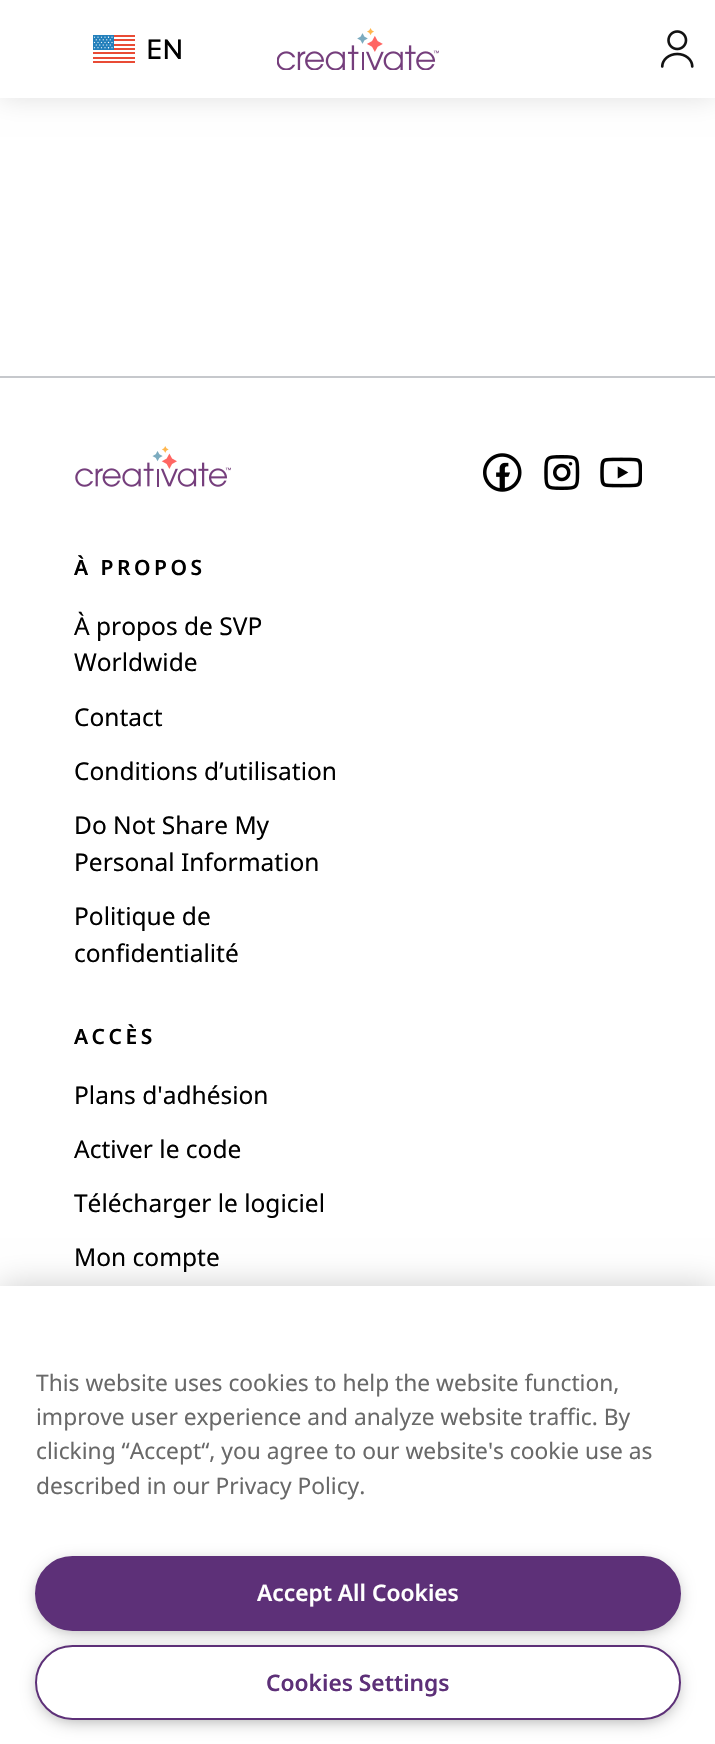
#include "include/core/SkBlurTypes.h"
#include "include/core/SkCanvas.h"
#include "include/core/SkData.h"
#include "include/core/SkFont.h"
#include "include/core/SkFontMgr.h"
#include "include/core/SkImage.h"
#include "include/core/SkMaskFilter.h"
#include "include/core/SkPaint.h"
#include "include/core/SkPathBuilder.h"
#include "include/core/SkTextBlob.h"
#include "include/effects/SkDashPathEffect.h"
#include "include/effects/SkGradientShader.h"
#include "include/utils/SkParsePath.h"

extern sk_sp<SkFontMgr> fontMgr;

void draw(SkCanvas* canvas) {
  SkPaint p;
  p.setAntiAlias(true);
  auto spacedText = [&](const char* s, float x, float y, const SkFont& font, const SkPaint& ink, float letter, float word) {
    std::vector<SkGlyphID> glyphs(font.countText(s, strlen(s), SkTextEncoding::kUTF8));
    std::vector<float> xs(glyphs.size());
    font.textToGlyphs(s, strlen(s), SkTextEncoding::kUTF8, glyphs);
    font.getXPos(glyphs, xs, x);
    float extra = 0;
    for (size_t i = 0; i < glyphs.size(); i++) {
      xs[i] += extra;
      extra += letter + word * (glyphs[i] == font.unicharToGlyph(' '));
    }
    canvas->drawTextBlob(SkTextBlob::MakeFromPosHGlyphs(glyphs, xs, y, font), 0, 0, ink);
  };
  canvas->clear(SK_ColorWHITE);
  p.setColor(SkColorSetARGB(31, 0, 0, 0));
  p.setMaskFilter(SkMaskFilter::MakeBlur(kNormal_SkBlurStyle, 13));
  canvas->drawRect(SkRect::MakeLTRB(0, 0, 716, 98), p);
  p.setMaskFilter(nullptr);
  p.setColor(SK_ColorWHITE);
  canvas->drawRect(SkRect::MakeLTRB(0, 0, 715, 98), p);
  canvas->drawImageRect(SkImages::DeferredFromEncodedData(SkData::MakeFromFileName("images/1.png")), SkRect::MakeLTRB(93, 35, 135, 63), SkSamplingOptions());
  canvas->drawImageRect(SkImages::DeferredFromEncodedData(SkData::MakeFromFileName("images/2.png")), SkRect::MakeLTRB(277, 28, 439, 70), SkSamplingOptions());
  canvas->drawImageRect(SkImages::DeferredFromEncodedData(SkData::MakeFromFileName("images/3.png")), SkRect::MakeLTRB(660, 30, 694, 68), SkSamplingOptions());
  p.setColor(SkColorSetRGB(198, 200, 204));
  canvas->drawRect(SkRect::MakeLTRB(0, 376, 715, 378), p);
  canvas->drawImageRect(SkImages::DeferredFromEncodedData(SkData::MakeFromFileName("images/4.png")), SkRect::MakeLTRB(75, 446, 231, 487), SkSamplingOptions());
  canvas->drawImageRect(SkImages::DeferredFromEncodedData(SkData::MakeFromFileName("images/5.png")), SkRect::MakeLTRB(483, 453, 522, 492), SkSamplingOptions());
  canvas->drawImageRect(SkImages::DeferredFromEncodedData(SkData::MakeFromFileName("images/6.png")), SkRect::MakeLTRB(544, 455, 580, 490), SkSamplingOptions());
  canvas->drawImageRect(SkImages::DeferredFromEncodedData(SkData::MakeFromFileName("images/7.png")), SkRect::MakeLTRB(600, 457, 642, 488), SkSamplingOptions());
  p.setColor(SkColorSetARGB(51, 0, 0, 0));
  p.setMaskFilter(SkMaskFilter::MakeBlur(kNormal_SkBlurStyle, 16));
  canvas->drawRect(SkRect::MakeLTRB(0, 1286, 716, 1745), p);
  p.setMaskFilter(nullptr);
  p.setColor(SK_ColorWHITE);
  canvas->drawRect(SkRect::MakeLTRB(0, 1286, 715, 1744), p);
  p.setColor(SkColorSetRGB(153, 153, 153));
  p.setMaskFilter(SkMaskFilter::MakeBlur(kNormal_SkBlurStyle, 9));
  canvas->drawRoundRect(SkRect::MakeLTRB(40, 1565, 676, 1629), 32, 32, p);
  p.setMaskFilter(nullptr);
  p.setColor(SkColorSetRGB(93, 48, 120));
  canvas->drawRoundRect(SkRect::MakeLTRB(36, 1557, 680, 1630), 36.5f, 36.5f, p);
  p.setStyle(SkPaint::kStroke_Style);
  p.setStrokeWidth(2);
  canvas->drawRoundRect(SkRect::MakeLTRB(36, 1557, 680, 1630), 36.5f, 36.5f, p);
  p.setStyle(SkPaint::kFill_Style);
  p.setColor(SkColorSetRGB(153, 153, 153));
  p.setMaskFilter(SkMaskFilter::MakeBlur(kNormal_SkBlurStyle, 9));
  canvas->drawRoundRect(SkRect::MakeLTRB(40, 1654, 676, 1719), 32.5f, 32.5f, p);
  p.setMaskFilter(nullptr);
  p.setColor(SK_ColorWHITE);
  canvas->drawRoundRect(SkRect::MakeLTRB(36, 1646, 680, 1719), 36.5f, 36.5f, p);
  p.setStyle(SkPaint::kStroke_Style);
  p.setColor(SkColorSetRGB(93, 48, 120));
  canvas->drawRoundRect(SkRect::MakeLTRB(36, 1646, 680, 1719), 36.5f, 36.5f, p);
  SkFont font1(fontMgr->matchFamilyStyle("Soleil", SkFontStyle::Normal()), 28);
  font1.setSubpixel(true);
  p.setStyle(SkPaint::kFill_Style);
  p.setColor(SK_ColorBLACK);
  canvas->drawString("EN", 146, 59, font1, p);
  SkFont font2(fontMgr->matchFamilyStyle("Noto Sans", SkFontStyle(600, SkFontStyle::kNormal_Width, SkFontStyle::kUpright_Slant)), 21);
  font2.setSubpixel(true);
  spacedText("À PROPOS", 74, 575, font2, p, 3.5f, 0);
  SkFont font3(fontMgr->matchFamilyStyle("Noto Sans", SkFontStyle::Normal()), 24.5f);
  font3.setSubpixel(true);
  canvas->drawString("À propos de SVP", 74, 635, font3, p);
  canvas->drawString("Worldwide", 74, 671, font3, p);
  canvas->drawString("Contact", 74, 726, font3, p);
  canvas->drawString("Conditions d’utilisation", 74, 780, font3, p);
  canvas->drawString("Do Not Share My", 74, 834, font3, p);
  canvas->drawString("Personal Information", 74, 871, font3, p);
  canvas->drawString("Politique de", 74, 925, font3, p);
  canvas->drawString("confidentialité", 74, 962, font3, p);
  spacedText("ACCÈS", 74, 1044, font2, p, 3.5f, 0);
  canvas->drawString("Plans d'adhésion", 74, 1104, font3, p);
  canvas->drawString("Activer le code", 74, 1158, font3, p);
  canvas->drawString("Télécharger le logiciel", 74, 1212, font3, p);
  canvas->drawString("Mon compte", 74, 1266, font3, p);
  SkFont font4(fontMgr->matchFamilyStyle("Noto Sans", SkFontStyle::Normal()), 22.75f);
  font4.setSubpixel(true);
  p.setColor(SkColorSetRGB(105, 105, 105));
  canvas->drawString("This website uses cookies to help the website function,", 36, 1391, font4, p);
  canvas->drawString("improve user experience and analyze website traffic. By", 36, 1425, font4, p);
  canvas->drawString("clicking “Accept“, you agree to our website's cookie use as", 36, 1459, font4, p);
  canvas->drawString("described in our Privacy Policy.", 36, 1494, font4, p);
  SkFont font5(fontMgr->matchFamilyStyle("Noto Sans", SkFontStyle(600, SkFontStyle::kNormal_Width, SkFontStyle::kUpright_Slant)), 22.75f);
  font5.setSubpixel(true);
  p.setColor(SK_ColorWHITE);
  canvas->drawString("Accept All Cookies", 257, 1601, font5, p);
  p.setColor(SkColorSetRGB(93, 48, 120));
  canvas->drawString("Cookies Settings", 266, 1691, font5, p);
}
